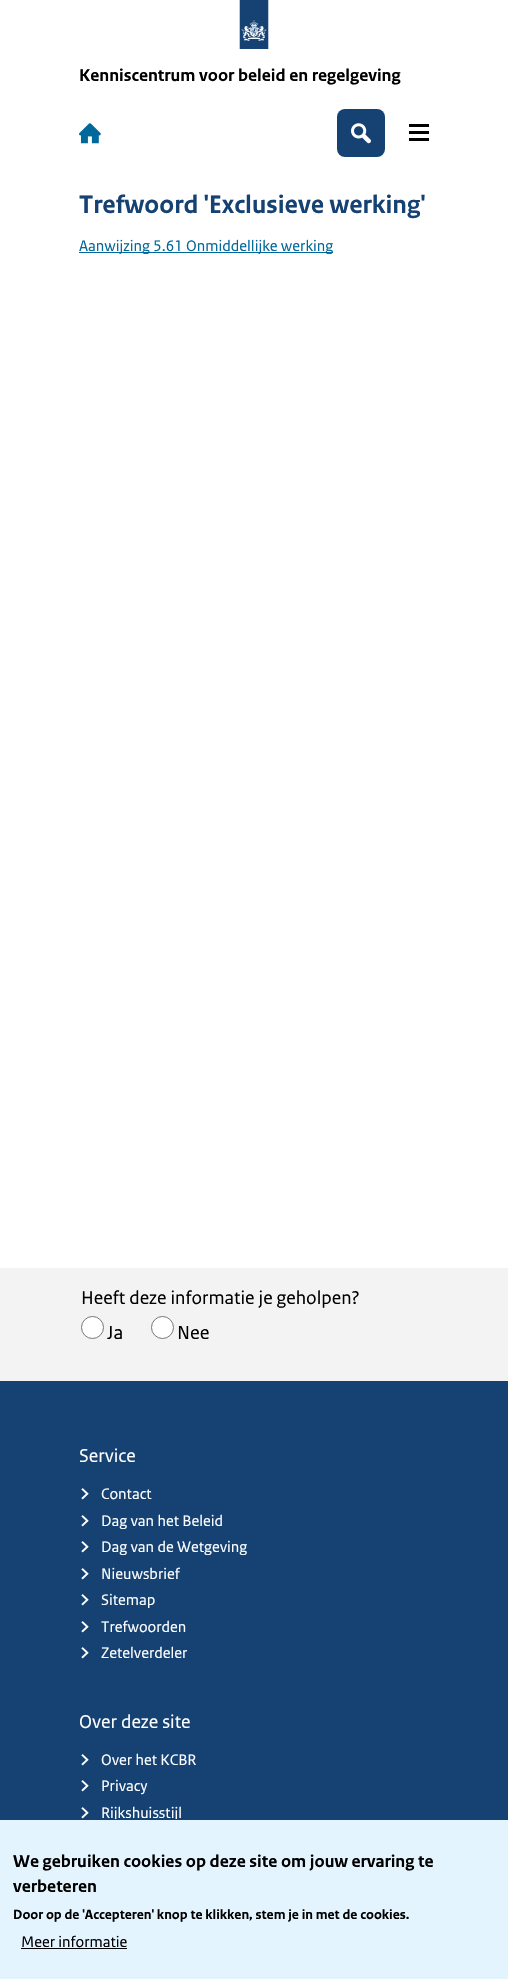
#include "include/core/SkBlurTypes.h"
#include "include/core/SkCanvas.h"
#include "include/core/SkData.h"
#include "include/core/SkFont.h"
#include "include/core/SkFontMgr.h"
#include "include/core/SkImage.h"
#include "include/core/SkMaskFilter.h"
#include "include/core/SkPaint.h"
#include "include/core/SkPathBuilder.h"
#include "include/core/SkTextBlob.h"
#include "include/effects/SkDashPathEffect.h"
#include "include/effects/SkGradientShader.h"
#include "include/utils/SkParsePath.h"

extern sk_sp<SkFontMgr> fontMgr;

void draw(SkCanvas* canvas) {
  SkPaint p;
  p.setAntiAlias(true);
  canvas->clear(SK_ColorWHITE);
  canvas->drawImageRect(SkImages::DeferredFromEncodedData(SkData::MakeFromFileName("images/1.png")), SkRect::MakeLTRB(239, 0, 269, 49), SkSamplingOptions());
  canvas->drawImageRect(SkImages::DeferredFromEncodedData(SkData::MakeFromFileName("images/2.png")), SkRect::MakeLTRB(79, 123, 101, 144), SkSamplingOptions());
  p.setColor(SkColorSetRGB(21, 66, 115));
  canvas->drawRoundRect(SkRect::MakeLTRB(337, 109, 385, 157), 8, 8, p);
  canvas->drawImageRect(SkImages::DeferredFromEncodedData(SkData::MakeFromFileName("images/3.png")), SkRect::MakeLTRB(351, 123, 371, 144), SkSamplingOptions());
  p.setColor(SK_ColorBLACK);
  canvas->drawRect(SkRect::MakeLTRB(409, 124, 429, 127), p);
  canvas->drawRect(SkRect::MakeLTRB(409, 131, 429, 134), p);
  canvas->drawRect(SkRect::MakeLTRB(409, 138, 429, 141), p);
  p.setColor(SkColorSetRGB(1, 104, 155));
  canvas->drawRect(SkRect::MakeLTRB(79, 252, 333, 253), p);
  p.setColor(SkColorSetRGB(243, 243, 243));
  canvas->drawRect(SkRect::MakeLTRB(0, 1268, 508, 1381), p);
  p.setColor(SK_ColorWHITE);
  canvas->drawCircle(92.5f, 1327.5f, 11, p);
  p.setStyle(SkPaint::kStroke_Style);
  p.setStrokeWidth(1);
  p.setColor(SkColorSetRGB(118, 118, 118));
  canvas->drawCircle(92.5f, 1327.5f, 11, p);
  p.setStyle(SkPaint::kFill_Style);
  p.setColor(SK_ColorWHITE);
  canvas->drawCircle(162.5f, 1327.5f, 11, p);
  p.setStyle(SkPaint::kStroke_Style);
  p.setColor(SkColorSetRGB(118, 118, 118));
  canvas->drawCircle(162.5f, 1327.5f, 11, p);
  p.setStyle(SkPaint::kFill_Style);
  p.setColor(SkColorSetRGB(21, 66, 115));
  canvas->drawRect(SkRect::MakeLTRB(0, 1381, 508, 1819), p);
  canvas->drawImageRect(SkImages::DeferredFromEncodedData(SkData::MakeFromFileName("images/4.png")), SkRect::MakeLTRB(81, 1488, 89, 1500), SkSamplingOptions());
  canvas->drawImageRect(SkImages::DeferredFromEncodedData(SkData::MakeFromFileName("images/4.png")), SkRect::MakeLTRB(81, 1515, 89, 1527), SkSamplingOptions());
  canvas->drawImageRect(SkImages::DeferredFromEncodedData(SkData::MakeFromFileName("images/4.png")), SkRect::MakeLTRB(81, 1541, 89, 1553), SkSamplingOptions());
  canvas->drawImageRect(SkImages::DeferredFromEncodedData(SkData::MakeFromFileName("images/4.png")), SkRect::MakeLTRB(81, 1568, 89, 1580), SkSamplingOptions());
  canvas->drawImageRect(SkImages::DeferredFromEncodedData(SkData::MakeFromFileName("images/4.png")), SkRect::MakeLTRB(81, 1594, 89, 1606), SkSamplingOptions());
  canvas->drawImageRect(SkImages::DeferredFromEncodedData(SkData::MakeFromFileName("images/4.png")), SkRect::MakeLTRB(81, 1621, 89, 1633), SkSamplingOptions());
  canvas->drawImageRect(SkImages::DeferredFromEncodedData(SkData::MakeFromFileName("images/4.png")), SkRect::MakeLTRB(81, 1647, 89, 1659), SkSamplingOptions());
  canvas->drawImageRect(SkImages::DeferredFromEncodedData(SkData::MakeFromFileName("images/4.png")), SkRect::MakeLTRB(81, 1754, 89, 1766), SkSamplingOptions());
  canvas->drawImageRect(SkImages::DeferredFromEncodedData(SkData::MakeFromFileName("images/4.png")), SkRect::MakeLTRB(81, 1780, 89, 1792), SkSamplingOptions());
  canvas->drawImageRect(SkImages::DeferredFromEncodedData(SkData::MakeFromFileName("images/4.png")), SkRect::MakeLTRB(81, 1807, 89, 1819), SkSamplingOptions());
  SkFont font1(fontMgr->matchFamilyStyle("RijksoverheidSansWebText", SkFontStyle::Bold()), 18);
  font1.setSubpixel(true);
  p.setColor(SK_ColorBLACK);
  canvas->drawString("Kenniscentrum voor beleid en regelgeving", 79, 81, font1, p);
  SkFont font2(fontMgr->matchFamilyStyle("RijksoverheidSansWebText", SkFontStyle::Bold()), 26.5f);
  font2.setSubpixel(true);
  p.setColor(SkColorSetRGB(21, 66, 115));
  canvas->drawString("Trefwoord 'Exclusieve werking'", 79, 213, font2, p);
  SkFont font3(fontMgr->matchFamilyStyle("RijksoverheidSansWebText", SkFontStyle::Normal()), 16);
  font3.setSubpixel(true);
  p.setColor(SkColorSetRGB(1, 104, 155));
  canvas->drawString("Aanwijzing 5.61 Onmiddellijke werking", 79, 251, font3, p);
  SkFont font4(fontMgr->matchFamilyStyle("RijksoverheidSansWebText", SkFontStyle::Normal()), 19.5f);
  font4.setSubpixel(true);
  p.setColor(SK_ColorBLACK);
  canvas->drawString("Heeft deze informatie je geholpen?", 81, 1304, font4, p);
  SkFont font5(fontMgr->matchFamilyStyle("RijksoverheidSansWebText", SkFontStyle::Normal()), 20);
  font5.setSubpixel(true);
  canvas->drawString("Ja", 107, 1339, font5, p);
  canvas->drawString("Nee", 177, 1339, font5, p);
  p.setColor(SK_ColorWHITE);
  canvas->drawString("Service", 79, 1462, font4, p);
  canvas->drawString("Contact", 101, 1499, font3, p);
  canvas->drawString("Dag van het Beleid", 101, 1526, font3, p);
  canvas->drawString("Dag van de Wetgeving", 101, 1552, font3, p);
  canvas->drawString("Nieuwsbrief", 101, 1579, font3, p);
  canvas->drawString("Sitemap", 101, 1605, font3, p);
  canvas->drawString("Trefwoorden", 101, 1632, font3, p);
  canvas->drawString("Zetelverdeler", 101, 1658, font3, p);
  canvas->drawString("Over deze site", 79, 1728, font4, p);
  canvas->drawString("Over het KCBR", 101, 1765, font3, p);
  canvas->drawString("Privacy", 101, 1791, font3, p);
  canvas->drawString("Rijkshuisstijl", 101, 1818, font3, p);
  p.setColor(SkColorSetRGB(227, 244, 255));
  canvas->drawRect(SkRect::MakeLTRB(0, 1820, 508, 1979), p);
  p.setColor(SkColorSetRGB(21, 66, 115));
  canvas->drawRect(SkRect::MakeLTRB(0, 1819, 508, 1820), p);
  p.setColor(SK_ColorBLACK);
  canvas->drawString("We gebruiken cookies op deze site om jouw ervaring te", 13, 1867, font1, p);
  canvas->drawString("verbeteren", 13, 1892, font1, p);
  SkFont font6(fontMgr->matchFamilyStyle("RijksoverheidSansWebText", SkFontStyle::Bold()), 14);
  font6.setSubpixel(true);
  canvas->drawString("Door op de 'Accepteren' knop te klikken, stem je in met de cookies.", 13, 1919, font6, p);
  canvas->drawString("Meer informatie", 21, 1947, font3, p);
  canvas->drawRect(SkRect::MakeLTRB(21, 1948, 127, 1949), p);
}
